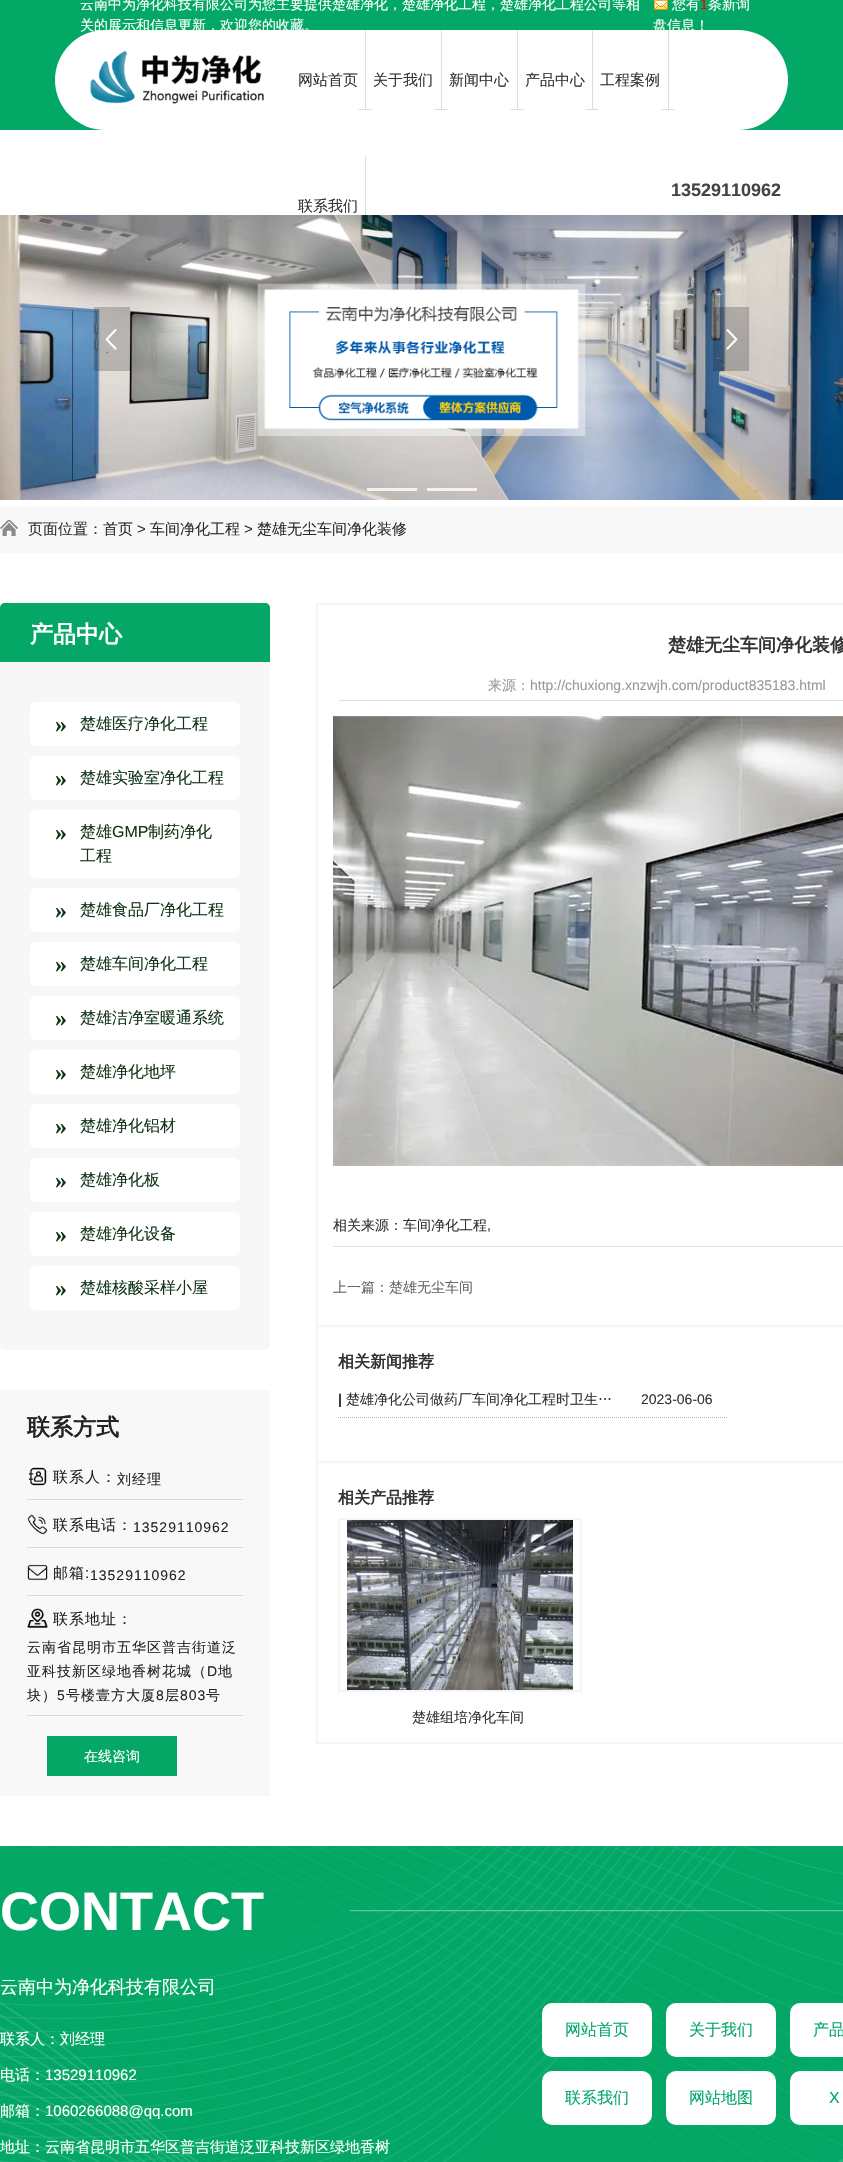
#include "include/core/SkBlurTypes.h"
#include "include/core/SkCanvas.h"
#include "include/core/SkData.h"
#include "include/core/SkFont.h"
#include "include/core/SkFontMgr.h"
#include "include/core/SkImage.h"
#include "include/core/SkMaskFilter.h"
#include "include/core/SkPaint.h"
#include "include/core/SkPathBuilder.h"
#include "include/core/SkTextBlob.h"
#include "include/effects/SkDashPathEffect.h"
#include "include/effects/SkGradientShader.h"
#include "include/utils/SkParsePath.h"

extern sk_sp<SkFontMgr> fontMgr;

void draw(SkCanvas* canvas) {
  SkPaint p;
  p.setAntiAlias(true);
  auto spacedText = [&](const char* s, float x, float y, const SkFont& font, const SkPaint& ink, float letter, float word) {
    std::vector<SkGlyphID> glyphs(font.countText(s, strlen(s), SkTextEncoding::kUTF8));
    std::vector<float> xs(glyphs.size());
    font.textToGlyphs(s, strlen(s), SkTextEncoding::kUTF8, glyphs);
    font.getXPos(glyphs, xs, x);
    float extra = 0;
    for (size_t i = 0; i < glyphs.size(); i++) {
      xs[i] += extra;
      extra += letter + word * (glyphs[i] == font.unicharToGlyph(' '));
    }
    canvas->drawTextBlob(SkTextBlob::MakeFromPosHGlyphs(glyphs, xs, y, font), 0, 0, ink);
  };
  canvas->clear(SK_ColorWHITE);
  p.setColor(SkColorSetRGB(3, 167, 102));
  canvas->drawRect(SkRect::MakeLTRB(0, 0, 843, 130), p);
  canvas->drawImageRect(SkImages::DeferredFromEncodedData(SkData::MakeFromFileName("images/1.png")), SkRect::MakeLTRB(654, 0, 668, 10), SkSamplingOptions());
  p.setColor(SK_ColorWHITE);
  canvas->drawRoundRect(SkRect::MakeLTRB(55, 30, 788, 130), 50, 50, p);
  canvas->drawImageRect(SkImages::DeferredFromEncodedData(SkData::MakeFromFileName("images/2.png")), SkRect::MakeLTRB(90, 50, 264, 104), SkSamplingOptions());
  canvas->drawImageRect(SkImages::DeferredFromEncodedData(SkData::MakeFromFileName("images/3.png")), SkRect::MakeLTRB(358, 30, 372, 110), SkSamplingOptions());
  canvas->drawImageRect(SkImages::DeferredFromEncodedData(SkData::MakeFromFileName("images/3.png")), SkRect::MakeLTRB(434, 30, 448, 110), SkSamplingOptions());
  canvas->drawImageRect(SkImages::DeferredFromEncodedData(SkData::MakeFromFileName("images/3.png")), SkRect::MakeLTRB(510, 30, 524, 110), SkSamplingOptions());
  canvas->drawImageRect(SkImages::DeferredFromEncodedData(SkData::MakeFromFileName("images/3.png")), SkRect::MakeLTRB(585, 30, 599, 110), SkSamplingOptions());
  canvas->drawImageRect(SkImages::DeferredFromEncodedData(SkData::MakeFromFileName("images/4.png")), SkRect::MakeLTRB(365, 156, 366, 215), SkSamplingOptions());
  canvas->drawImageRect(SkImages::DeferredFromEncodedData(SkData::MakeFromFileName("images/5.png")), SkRect::MakeLTRB(0, 215, 843, 500), SkSamplingOptions());
  canvas->drawImageRect(SkImages::DeferredFromEncodedData(SkData::MakeFromFileName("images/6.png")), SkRect::MakeLTRB(94, 307, 130, 371), SkSamplingOptions());
  canvas->drawImageRect(SkImages::DeferredFromEncodedData(SkData::MakeFromFileName("images/7.png")), SkRect::MakeLTRB(713, 307, 749, 371), SkSamplingOptions());
  p.setColor(SkColorSetARGB(204, 255, 255, 255));
  canvas->drawRect(SkRect::MakeLTRB(367, 488, 417, 491), p);
  canvas->drawRect(SkRect::MakeLTRB(427, 488, 477, 491), p);
  p.setColor(SkColorSetRGB(248, 248, 248));
  canvas->drawRect(SkRect::MakeLTRB(0, 506, 843, 553), p);
  canvas->drawImageRect(SkImages::DeferredFromEncodedData(SkData::MakeFromFileName("images/8.png")), SkRect::MakeLTRB(0, 520, 18, 536), SkSamplingOptions());
  p.setColor(SkColorSetRGB(247, 247, 247));
  canvas->drawRoundRect(SkRect::MakeLTRB(0, 603, 270, 1350), 5, 5, p);
  p.setColor(SkColorSetRGB(4, 167, 102));
  canvas->drawPath(SkPathBuilder().moveTo(5, 603).lineTo(265, 603).cubicTo(268, 603, 270, 605, 270, 608).lineTo(270, 662).lineTo(0, 662).lineTo(0, 608).cubicTo(0, 605, 2, 603, 5, 603).close().detach(), p);
  p.setColor(SK_ColorWHITE);
  canvas->drawRoundRect(SkRect::MakeLTRB(30, 702, 240, 746), 5, 5, p);
  canvas->drawRoundRect(SkRect::MakeLTRB(30, 756, 240, 800), 5, 5, p);
  canvas->drawRoundRect(SkRect::MakeLTRB(30, 810, 240, 878), 5, 5, p);
  canvas->drawRoundRect(SkRect::MakeLTRB(30, 888, 240, 932), 5, 5, p);
  canvas->drawRoundRect(SkRect::MakeLTRB(30, 942, 240, 986), 5, 5, p);
  canvas->drawRoundRect(SkRect::MakeLTRB(30, 996, 240, 1040), 5, 5, p);
  canvas->drawRoundRect(SkRect::MakeLTRB(30, 1050, 240, 1094), 5, 5, p);
  canvas->drawRoundRect(SkRect::MakeLTRB(30, 1104, 240, 1148), 5, 5, p);
  canvas->drawRoundRect(SkRect::MakeLTRB(30, 1158, 240, 1202), 5, 5, p);
  canvas->drawRoundRect(SkRect::MakeLTRB(30, 1212, 240, 1256), 5, 5, p);
  canvas->drawRoundRect(SkRect::MakeLTRB(30, 1266, 240, 1310), 5, 5, p);
  p.setColor(SkColorSetRGB(248, 248, 248));
  canvas->drawRect(SkRect::MakeLTRB(0, 1390, 270, 1796), p);
  p.setColor(SkColorSetRGB(218, 218, 218));
  canvas->drawRect(SkRect::MakeLTRB(27, 1499, 243, 1500), p);
  canvas->drawImageRect(SkImages::DeferredFromEncodedData(SkData::MakeFromFileName("images/9.png")), SkRect::MakeLTRB(28, 1467, 47, 1486), SkSamplingOptions());
  canvas->drawRect(SkRect::MakeLTRB(27, 1547, 243, 1548), p);
  canvas->drawImageRect(SkImages::DeferredFromEncodedData(SkData::MakeFromFileName("images/10.png")), SkRect::MakeLTRB(27, 1514, 48, 1535), SkSamplingOptions());
  canvas->drawRect(SkRect::MakeLTRB(27, 1595, 243, 1596), p);
  canvas->drawImageRect(SkImages::DeferredFromEncodedData(SkData::MakeFromFileName("images/11.png")), SkRect::MakeLTRB(27, 1564, 48, 1581), SkSamplingOptions());
  canvas->drawRect(SkRect::MakeLTRB(27, 1715, 243, 1716), p);
  canvas->drawImageRect(SkImages::DeferredFromEncodedData(SkData::MakeFromFileName("images/12.png")), SkRect::MakeLTRB(27, 1608, 48, 1628), SkSamplingOptions());
  p.setColor(SkColorSetRGB(4, 167, 102));
  canvas->drawRect(SkRect::MakeLTRB(47, 1736, 177, 1776), p);
  p.setStyle(SkPaint::kStroke_Style);
  p.setStrokeWidth(2);
  p.setColor(SkColorSetRGB(245, 245, 245));
  canvas->drawRect(SkRect::MakeLTRB(317, 604, 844, 1743), p);
  p.setStyle(SkPaint::kFill_Style);
  p.setColor(SkColorSetRGB(222, 222, 222));
  canvas->drawRect(SkRect::MakeLTRB(339, 700, 843, 701), p);
  canvas->drawImageRect(SkImages::DeferredFromEncodedData(SkData::MakeFromFileName("images/13.png")), SkRect::MakeLTRB(333, 716, 843, 1166), SkSamplingOptions());
  p.setColor(SkColorSetRGB(226, 225, 225));
  canvas->drawRect(SkRect::MakeLTRB(333, 1246, 843, 1247), p);
  p.setColor(SkColorSetRGB(245, 245, 245));
  canvas->drawRect(SkRect::MakeLTRB(318, 1325, 843, 1327), p);
  p.setStyle(SkPaint::kStroke_Style);
  p.setStrokeWidth(1);
  p.setColor(SkColorSetRGB(179, 177, 177));
  p.setPathEffect(SkDashPathEffect::Make({{1, 1}}, 0));
  canvas->drawPath(SkPathBuilder().moveTo(338, 1417.5f).lineTo(727, 1417.5f).detach(), p);
  p.setPathEffect(nullptr);
  p.setStyle(SkPaint::kFill_Style);
  p.setColor(SkColorSetRGB(245, 245, 245));
  canvas->drawRect(SkRect::MakeLTRB(318, 1461, 843, 1463), p);
  p.setStyle(SkPaint::kStroke_Style);
  p.setStrokeWidth(2);
  canvas->drawRect(SkRect::MakeLTRB(339, 1519, 581, 1691), p);
  canvas->drawImageRect(SkImages::DeferredFromEncodedData(SkData::MakeFromFileName("images/14.png")), SkRect::MakeLTRB(347, 1520, 573, 1690), SkSamplingOptions());
  canvas->drawImageRect(SkImages::DeferredFromEncodedData(SkData::MakeFromFileName("images/15.png")), SkRect::MakeLTRB(0, 1846, 843, 2162), SkSamplingOptions());
  canvas->drawImageRect(SkImages::DeferredFromEncodedData(SkData::MakeFromFileName("images/16.png")), SkRect::MakeLTRB(349, 1910, 843, 1912), SkSamplingOptions());
  p.setStyle(SkPaint::kFill_Style);
  p.setColor(SK_ColorWHITE);
  canvas->drawRoundRect(SkRect::MakeLTRB(542, 2003, 652, 2057), 10, 10, p);
  canvas->drawRoundRect(SkRect::MakeLTRB(666, 2003, 776, 2057), 10, 10, p);
  canvas->drawRoundRect(SkRect::MakeLTRB(790, 2003, 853, 2057), 10, 10, p);
  canvas->drawRoundRect(SkRect::MakeLTRB(542, 2071, 652, 2125), 10, 10, p);
  canvas->drawRoundRect(SkRect::MakeLTRB(666, 2071, 776, 2125), 10, 10, p);
  canvas->drawRoundRect(SkRect::MakeLTRB(790, 2071, 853, 2125), 10, 10, p);
  SkFont font1(fontMgr->matchFamilyStyle("WenQuanYi Zen Hei", SkFontStyle(500, SkFontStyle::kNormal_Width, SkFontStyle::kUpright_Slant)), 14);
  font1.setSubpixel(true);
  canvas->drawString("云南中为净化科技有限公司为您主要提供楚雄净化，楚雄净化工程，楚雄净化工程公司等相", 80, 9, font1, p);
  canvas->drawString("关的展示和信息更新，欢迎您的收藏。", 80, 30, font1, p);
  canvas->drawString("您有", 672, 9, font1, p);
  SkFont font2(fontMgr->matchFamilyStyle("Liberation Sans", SkFontStyle::Normal()), 14);
  font2.setSubpixel(true);
  p.setColor(SkColorSetRGB(255, 0, 0));
  canvas->drawString("1", 700, 9, font2, p);
  p.setColor(SK_ColorWHITE);
  canvas->drawString("条新询", 708, 9, font1, p);
  canvas->drawString("盘信息！", 653, 30, font1, p);
  SkFont font3(fontMgr->matchFamilyStyle("WenQuanYi Zen Hei", SkFontStyle(500, SkFontStyle::kNormal_Width, SkFontStyle::kUpright_Slant)), 15);
  font3.setSubpixel(true);
  p.setColor(SkColorSetRGB(51, 51, 51));
  canvas->drawString("网站首页", 298, 85, font3, p);
  canvas->drawString("关于我们", 373, 85, font3, p);
  canvas->drawString("新闻中心", 449, 85, font3, p);
  canvas->drawString("产品中心", 525, 85, font3, p);
  canvas->drawImageRect(SkImages::DeferredFromEncodedData(SkData::MakeFromFileName("images/3.png")), SkRect::MakeLTRB(661, 30, 675, 110), SkSamplingOptions());
  canvas->drawString("工程案例", 600, 85, font3, p);
  canvas->drawString("联系我们", 298, 211, font3, p);
  SkFont font4(fontMgr->matchFamilyStyle("Liberation Sans", SkFontStyle::Bold()), 18);
  font4.setSubpixel(true);
  p.setColor(SkColorSetRGB(68, 68, 68));
  canvas->drawString("13529110962", 671, 196, font4, p);
  p.setColor(SkColorSetRGB(51, 51, 51));
  canvas->drawString("页面位置：", 28, 534, font3, p);
  p.setColor(SkColorSetRGB(45, 41, 41));
  canvas->drawString("首页", 103, 534, font3, p);
  SkFont font5(fontMgr->matchFamilyStyle("Liberation Sans", SkFontStyle::Normal()), 15);
  font5.setSubpixel(true);
  p.setColor(SkColorSetRGB(51, 51, 51));
  canvas->drawString(">", 137, 534, font5, p);
  p.setColor(SkColorSetRGB(45, 41, 41));
  canvas->drawString("车间净化工程", 150, 534, font3, p);
  p.setColor(SkColorSetRGB(51, 51, 51));
  canvas->drawString(">", 244, 534, font5, p);
  p.setColor(SkColorSetRGB(45, 41, 41));
  canvas->drawString("楚雄无尘车间净化装修", 257, 534, font3, p);
  SkFont font6(fontMgr->matchFamilyStyle("WenQuanYi Zen Hei", SkFontStyle::Bold()), 23);
  font6.setSubpixel(true);
  p.setColor(SK_ColorWHITE);
  canvas->drawString("产品中心", 30, 642, font6, p);
  SkFont font7(fontMgr->matchFamilyStyle("Liberation Serif", SkFontStyle::Bold()), 24);
  font7.setSubpixel(true);
  p.setColor(SkColorSetRGB(17, 52, 23));
  canvas->drawString("»", 55, 732, font7, p);
  SkFont font8(fontMgr->matchFamilyStyle("WenQuanYi Zen Hei", SkFontStyle(500, SkFontStyle::kNormal_Width, SkFontStyle::kUpright_Slant)), 16);
  font8.setSubpixel(true);
  canvas->drawString("楚雄医疗净化工程", 80, 729, font8, p);
  canvas->drawString("»", 55, 786, font7, p);
  canvas->drawString("楚雄实验室净化工程", 80, 783, font8, p);
  canvas->drawString("»", 55, 840, font7, p);
  canvas->drawString("楚雄", 80, 837, font8, p);
  SkFont font9(fontMgr->matchFamilyStyle("Liberation Sans", SkFontStyle::Normal()), 16);
  font9.setSubpixel(true);
  canvas->drawString("GMP", 112, 837, font9, p);
  canvas->drawString("制药净化", 148, 837, font8, p);
  canvas->drawString("工程", 80, 861, font8, p);
  canvas->drawString("»", 55, 918, font7, p);
  canvas->drawString("楚雄食品厂净化工程", 80, 915, font8, p);
  canvas->drawString("»", 55, 972, font7, p);
  canvas->drawString("楚雄车间净化工程", 80, 969, font8, p);
  canvas->drawString("»", 55, 1026, font7, p);
  canvas->drawString("楚雄洁净室暖通系统", 80, 1023, font8, p);
  canvas->drawString("»", 55, 1080, font7, p);
  canvas->drawString("楚雄净化地坪", 80, 1077, font8, p);
  canvas->drawString("»", 55, 1134, font7, p);
  canvas->drawString("楚雄净化铝材", 80, 1131, font8, p);
  canvas->drawString("»", 55, 1188, font7, p);
  canvas->drawString("楚雄净化板", 80, 1185, font8, p);
  canvas->drawString("»", 55, 1242, font7, p);
  canvas->drawString("楚雄净化设备", 80, 1239, font8, p);
  canvas->drawString("»", 55, 1296, font7, p);
  canvas->drawString("楚雄核酸采样小屋", 80, 1293, font8, p);
  p.setColor(SkColorSetRGB(37, 36, 36));
  canvas->drawString("联系方式", 27, 1435, font6, p);
  spacedText("联系人：", 53, 1482, font3, p, 1, 0);
  spacedText("刘经理", 117, 1484, font1, p, 1, 0);
  spacedText("联系电话：", 53, 1530, font3, p, 1, 0);
  spacedText("13529110962", 133, 1532, font2, p, 1, 0);
  spacedText("邮箱", 53, 1578, font3, p, 1, 0);
  spacedText(":", 85, 1578, font5, p, 1, 0);
  spacedText("13529110962", 90, 1580, font2, p, 1, 0);
  spacedText("联系地址：", 53, 1624, font3, p, 1, 0);
  spacedText("云南省昆明市五华区普吉街道泛", 27, 1652, font1, p, 1, 0);
  spacedText("亚科技新区绿地香树花城（", 27, 1676, font1, p, 1, 0);
  spacedText("D", 207, 1676, font2, p, 1, 0);
  spacedText("地", 218, 1676, font1, p, 1, 0);
  spacedText("块）", 27, 1700, font1, p, 1, 0);
  spacedText("5", 57, 1700, font2, p, 1, 0);
  spacedText("号楼壹方大厦", 66, 1700, font1, p, 1, 0);
  spacedText("8", 156, 1700, font2, p, 1, 0);
  spacedText("层", 165, 1700, font1, p, 1, 0);
  spacedText("803", 180, 1700, font2, p, 1, 0);
  spacedText("号", 206, 1700, font1, p, 1, 0);
  p.setColor(SK_ColorWHITE);
  canvas->drawString("在线咨询", 84, 1761, font1, p);
  SkFont font10(fontMgr->matchFamilyStyle("WenQuanYi Zen Hei", SkFontStyle::Bold()), 18);
  font10.setSubpixel(true);
  p.setColor(SkColorSetRGB(51, 51, 51));
  canvas->drawString("楚雄无尘车间净化装修", 668, 651, font10, p);
  p.setColor(SkColorSetRGB(153, 153, 153));
  canvas->drawString("来源：", 488, 690, font1, p);
  canvas->drawString("http://chuxiong.xnzwjh.com/product835183.html", 530, 690, font2, p);
  p.setColor(SkColorSetRGB(51, 51, 51));
  canvas->drawString("相关来源：车间净化工程", 333, 1230, font1, p);
  canvas->drawString(",", 487, 1230, font2, p);
  p.setColor(SkColorSetRGB(102, 102, 102));
  canvas->drawString("上一篇：楚雄无尘车间", 333, 1292, font1, p);
  SkFont font11(fontMgr->matchFamilyStyle("WenQuanYi Zen Hei", SkFontStyle::Bold()), 16);
  font11.setSubpixel(true);
  p.setColor(SkColorSetRGB(51, 51, 51));
  canvas->drawString("相关新闻推荐", 338, 1367, font11, p);
  SkFont font12(fontMgr->matchFamilyStyle("Liberation Sans", SkFontStyle::Bold()), 14);
  font12.setSubpixel(true);
  canvas->drawString("|", 338, 1404, font12, p);
  canvas->drawString("楚雄净化公司做药厂车间净化工程时卫生…", 346, 1404, font1, p);
  canvas->drawString("2023-06-06", 641, 1404, font2, p);
  canvas->drawString("相关产品推荐", 338, 1503, font11, p);
  canvas->drawString("楚雄组培净化车间", 412, 1722, font1, p);
  SkFont font13(fontMgr->matchFamilyStyle("Liberation Sans", SkFontStyle::Bold()), 54);
  font13.setSubpixel(true);
  p.setColor(SK_ColorWHITE);
  canvas->drawString("CONTACT", 0, 1930, font13, p);
  SkFont font14(fontMgr->matchFamilyStyle("WenQuanYi Zen Hei", SkFontStyle(500, SkFontStyle::kNormal_Width, SkFontStyle::kUpright_Slant)), 18);
  font14.setSubpixel(true);
  canvas->drawString("云南中为净化科技有限公司", 0, 1993, font14, p);
  canvas->drawString("联系人：刘经理", 0, 2044, font3, p);
  canvas->drawString("电话：", 0, 2080, font3, p);
  canvas->drawString("13529110962", 45, 2080, font5, p);
  canvas->drawString("邮箱：", 0, 2116, font3, p);
  canvas->drawString("1060266088@qq.com", 45, 2116, font5, p);
  canvas->drawString("地址：云南省昆明市五华区普吉街道泛亚科技新区绿地香树", 0, 2152, font3, p);
  p.setColor(SkColorSetRGB(3, 167, 102));
  canvas->drawString("网站首页", 565, 2035, font8, p);
  canvas->drawString("关于我们", 689, 2035, font8, p);
  canvas->drawString("产品", 813, 2035, font8, p);
  canvas->drawString("联系我们", 565, 2103, font8, p);
  canvas->drawString("网站地图", 689, 2103, font8, p);
  canvas->drawString("X", 829, 2103, font9, p);
}
